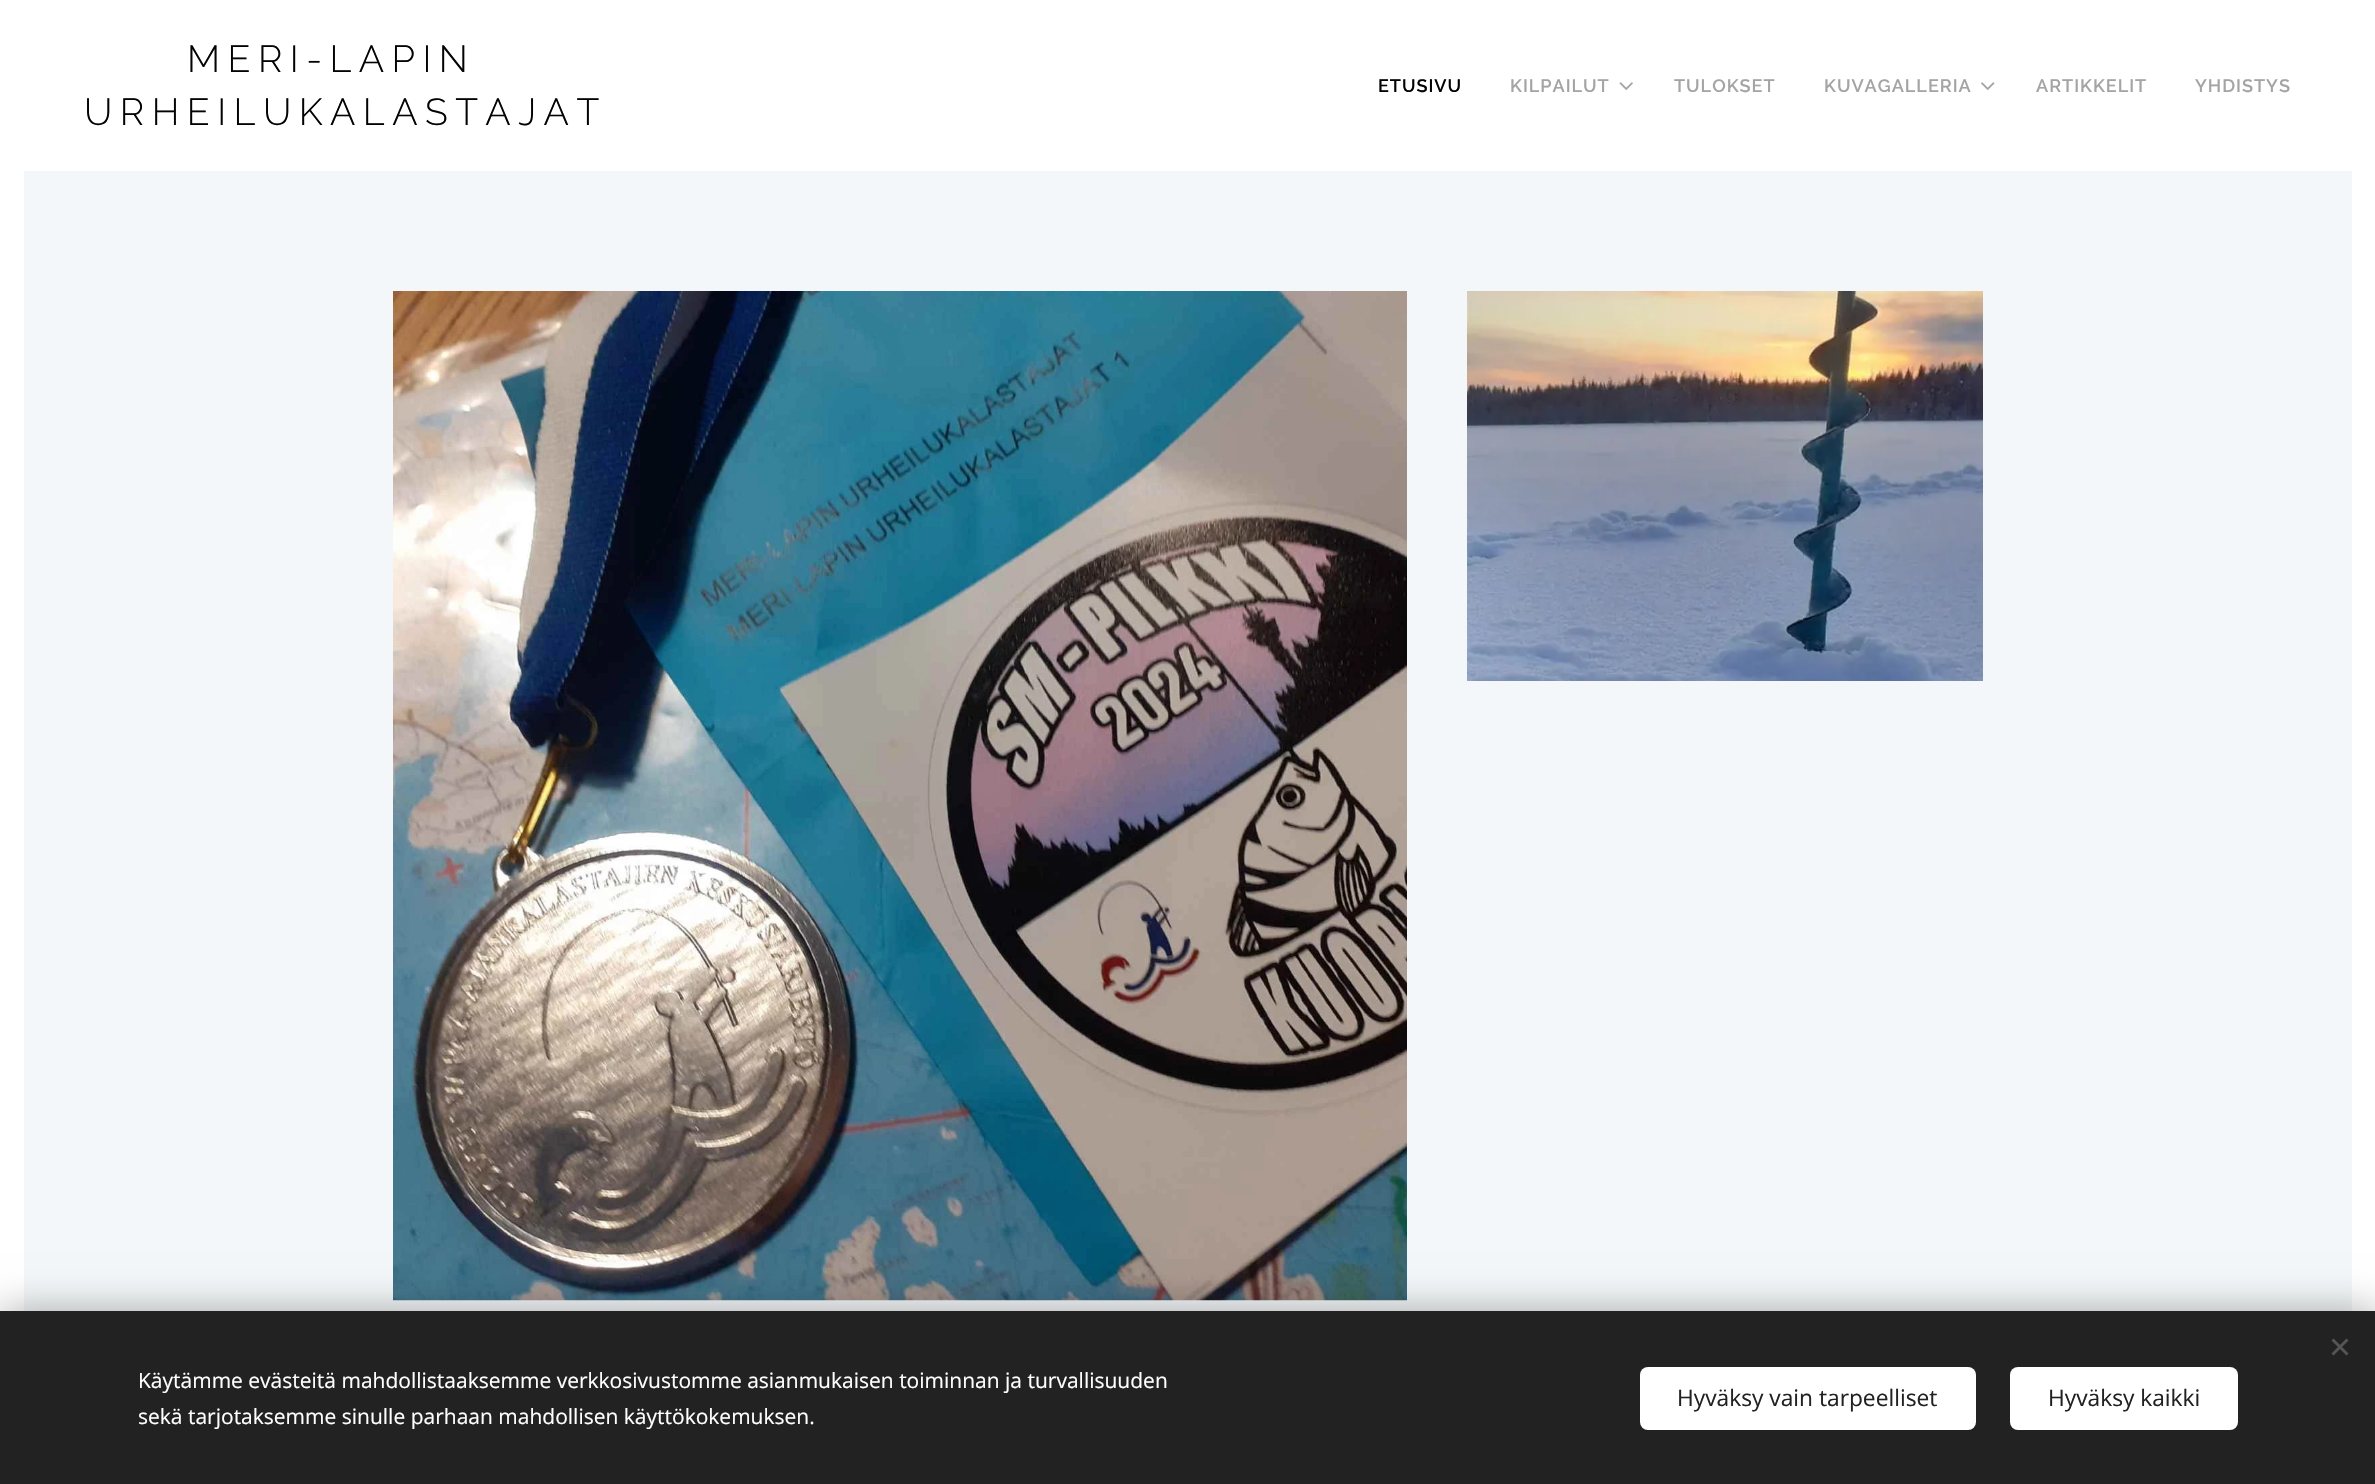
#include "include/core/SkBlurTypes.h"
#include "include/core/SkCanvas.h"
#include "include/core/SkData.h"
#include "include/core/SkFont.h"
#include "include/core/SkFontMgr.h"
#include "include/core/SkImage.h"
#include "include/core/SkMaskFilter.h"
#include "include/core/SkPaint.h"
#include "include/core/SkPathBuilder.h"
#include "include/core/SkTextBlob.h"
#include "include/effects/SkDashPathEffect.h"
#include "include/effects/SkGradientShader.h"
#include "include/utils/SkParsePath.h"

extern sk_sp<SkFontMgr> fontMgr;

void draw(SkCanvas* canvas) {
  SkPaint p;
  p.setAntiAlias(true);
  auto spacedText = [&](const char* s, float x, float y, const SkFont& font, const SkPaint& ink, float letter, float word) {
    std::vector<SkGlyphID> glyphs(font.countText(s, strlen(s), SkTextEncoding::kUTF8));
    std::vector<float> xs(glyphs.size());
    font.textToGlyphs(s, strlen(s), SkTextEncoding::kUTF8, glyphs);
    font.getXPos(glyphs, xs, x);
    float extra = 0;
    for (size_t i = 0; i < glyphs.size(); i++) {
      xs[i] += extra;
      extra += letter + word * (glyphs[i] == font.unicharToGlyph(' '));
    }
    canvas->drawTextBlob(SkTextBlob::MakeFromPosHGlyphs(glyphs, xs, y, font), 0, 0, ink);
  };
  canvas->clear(SK_ColorWHITE);
  canvas->drawImageRect(SkImages::DeferredFromEncodedData(SkData::MakeFromFileName("images/1.png")), SkRect::MakeLTRB(1619, 82, 1633, 90), SkSamplingOptions());
  canvas->drawImageRect(SkImages::DeferredFromEncodedData(SkData::MakeFromFileName("images/2.png")), SkRect::MakeLTRB(1981, 82, 1995, 90), SkSamplingOptions());
  p.setColor(SkColorSetRGB(244, 247, 249));
  canvas->drawRect(SkRect::MakeLTRB(24, 171, 2352, 1311), p);
  canvas->drawImageRect(SkImages::DeferredFromEncodedData(SkData::MakeFromFileName("images/3.png")), SkRect::MakeLTRB(393, 291, 1407, 1301), SkSamplingOptions());
  canvas->drawImageRect(SkImages::DeferredFromEncodedData(SkData::MakeFromFileName("images/4.png")), SkRect::MakeLTRB(1467, 291, 1983, 681), SkSamplingOptions());
  p.setColor(SkColorSetARGB(84, 0, 0, 0));
  p.setMaskFilter(SkMaskFilter::MakeBlur(kNormal_SkBlurStyle, 19));
  canvas->drawRect(SkRect::MakeLTRB(0, 1311, 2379, 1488), p);
  p.setMaskFilter(nullptr);
  p.setColor(SkColorSetRGB(34, 34, 34));
  canvas->drawRect(SkRect::MakeLTRB(0, 1311, 2375, 1484), p);
  p.setColor(SkColorSetRGB(85, 85, 85));
  canvas->drawPath(SkPathBuilder().moveTo(2331.5f, 1353.5f).lineTo(2346.5f, 1338.5f).lineTo(2348.5f, 1340.5f).lineTo(2333.5f, 1355.5f).close().detach(), p);
  canvas->drawPath(SkPathBuilder().moveTo(2333.5f, 1338.5f).lineTo(2348.5f, 1353.5f).lineTo(2346.5f, 1355.5f).lineTo(2331.5f, 1340.5f).close().detach(), p);
  p.setColor(SK_ColorWHITE);
  canvas->drawRoundRect(SkRect::MakeLTRB(1640, 1367, 1976, 1430), 8, 8, p);
  canvas->drawRoundRect(SkRect::MakeLTRB(2010, 1367, 2238, 1430), 8, 8, p);
  SkFont font1(fontMgr->matchFamilyStyle("Raleway", SkFontStyle(300, SkFontStyle::kNormal_Width, SkFontStyle::kUpright_Slant)), 37.5f);
  font1.setSubpixel(true);
  p.setColor(SkColorSetRGB(3, 3, 3));
  spacedText("MERI-LAPIN", 187, 72, font1, p, 7.5f, 0);
  spacedText("URHEILUKALASTAJAT", 84, 125, font1, p, 7.5f, 0);
  SkFont font2(fontMgr->matchFamilyStyle("Raleway", SkFontStyle(600, SkFontStyle::kNormal_Width, SkFontStyle::kUpright_Slant)), 18);
  font2.setSubpixel(true);
  spacedText("ETUSIVU", 1378, 92, font2, p, 1, 0);
  p.setColor(SkColorSetRGB(164, 164, 164));
  spacedText("KILPAILUT", 1510, 92, font2, p, 1, 0);
  spacedText("TULOKSET", 1674, 92, font2, p, 1, 0);
  spacedText("KUVAGALLERIA", 1824, 92, font2, p, 1, 0);
  spacedText("ARTIKKELIT", 2036, 92, font2, p, 1, 0);
  spacedText("YHDISTYS", 2195, 92, font2, p, 1, 0);
  SkFont font3(fontMgr->matchFamilyStyle("Open Sans", SkFontStyle::Normal()), 21);
  font3.setSubpixel(true);
  p.setColor(SK_ColorWHITE);
  canvas->drawString("Käytämme evästeitä mahdollistaaksemme verkkosivustomme asianmukaisen toiminnan ja turvallisuuden", 138, 1388, font3, p);
  canvas->drawString("sekä tarjotaksemme sinulle parhaan mahdollisen käyttökokemuksen.", 138, 1424, font3, p);
  SkFont font4(fontMgr->matchFamilyStyle("Open Sans", SkFontStyle::Normal()), 22.75f);
  font4.setSubpixel(true);
  p.setColor(SkColorSetRGB(34, 34, 34));
  canvas->drawString("Hyväksy vain tarpeelliset", 1677, 1406, font4, p);
  canvas->drawString("Hyväksy kaikki", 2048, 1406, font4, p);
}
